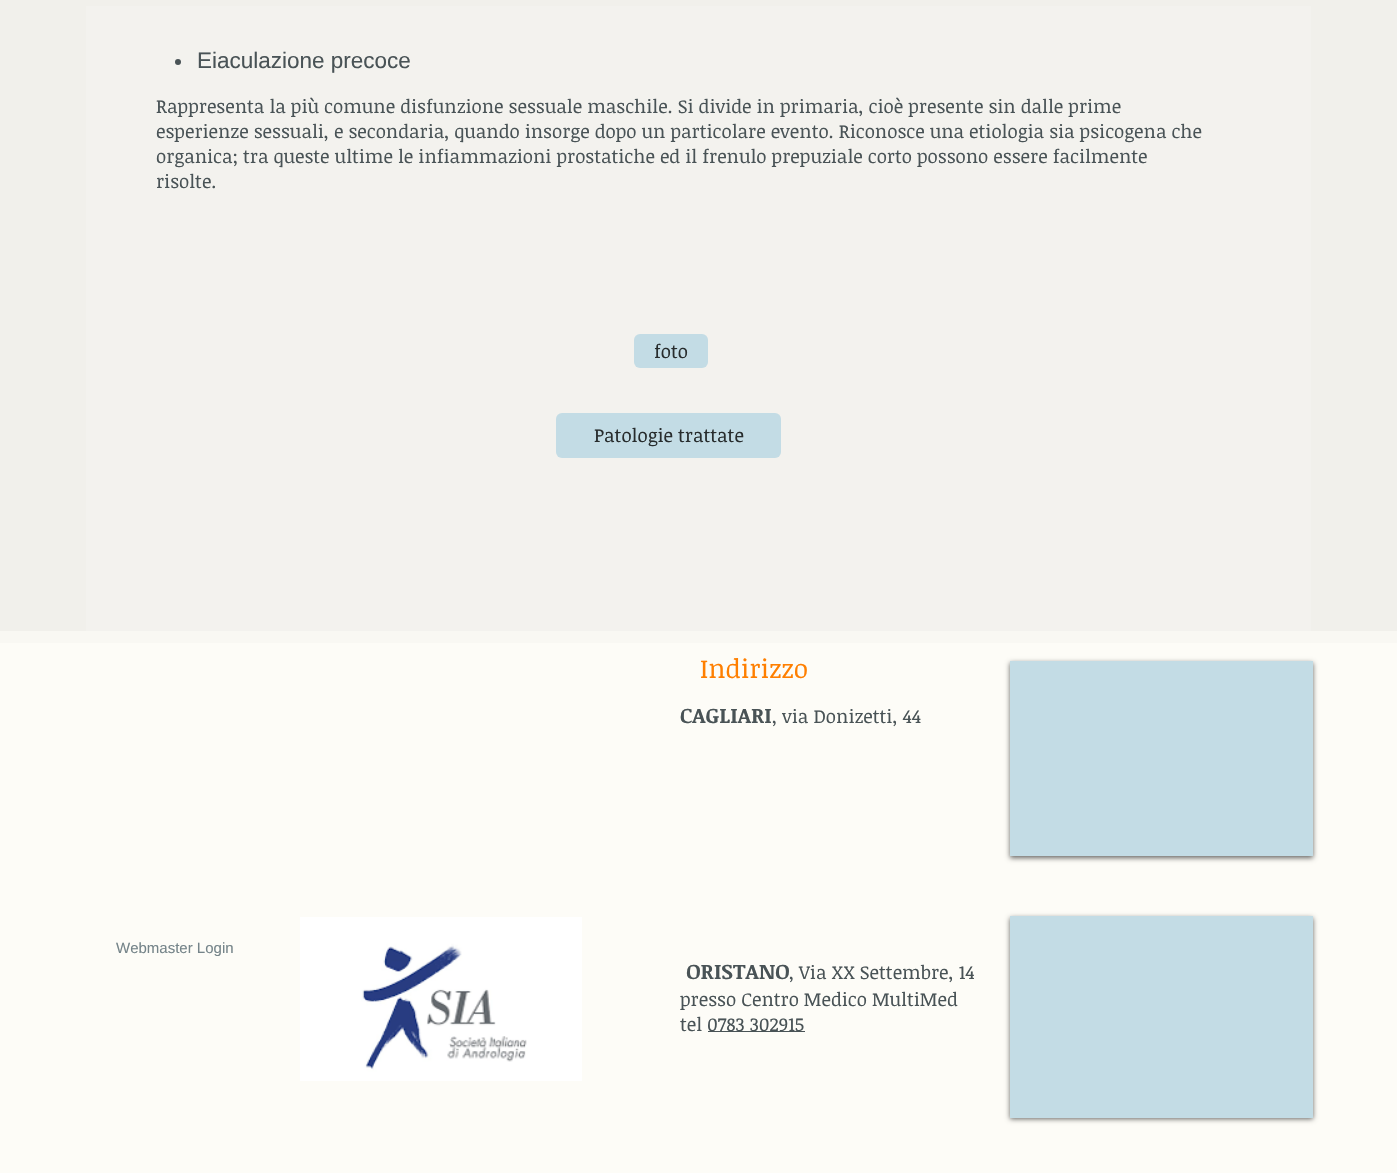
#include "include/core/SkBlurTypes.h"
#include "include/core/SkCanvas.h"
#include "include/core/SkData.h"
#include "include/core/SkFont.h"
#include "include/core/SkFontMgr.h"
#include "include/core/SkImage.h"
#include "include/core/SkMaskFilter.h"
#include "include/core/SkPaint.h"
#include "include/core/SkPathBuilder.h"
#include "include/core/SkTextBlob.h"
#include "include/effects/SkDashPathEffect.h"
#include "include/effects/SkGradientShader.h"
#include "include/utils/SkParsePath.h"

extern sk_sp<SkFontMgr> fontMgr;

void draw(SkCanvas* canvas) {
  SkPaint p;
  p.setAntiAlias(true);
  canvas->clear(SkColorSetRGB(241, 240, 235));
  p.setColor(SkColorSetRGB(243, 242, 238));
  canvas->drawRect(SkRect::MakeLTRB(86, 6, 1311, 631), p);
  p.setColor(SkColorSetRGB(73, 83, 86));
  canvas->drawCircle(178, 62, 3, p);
  p.setColor(SkColorSetRGB(195, 220, 229));
  canvas->drawRoundRect(SkRect::MakeLTRB(634, 334, 708, 368), 6, 6, p);
  canvas->drawRoundRect(SkRect::MakeLTRB(556, 413, 781, 458), 6, 6, p);
  p.setColor(SkColorSetRGB(253, 252, 247));
  canvas->drawRect(SkRect::MakeLTRB(0, 643, 1397, 1173), p);
  p.setColor(SkColorSetRGB(249, 248, 243));
  canvas->drawRect(SkRect::MakeLTRB(0, 631, 1397, 643), p);
  p.setColor(SkColorSetARGB(153, 0, 0, 0));
  p.setMaskFilter(SkMaskFilter::MakeBlur(kNormal_SkBlurStyle, 2.5f));
  canvas->drawRect(SkRect::MakeLTRB(1010, 663, 1313, 858), p);
  p.setMaskFilter(nullptr);
  p.setColor(SkColorSetRGB(195, 220, 229));
  canvas->drawRect(SkRect::MakeLTRB(1010, 661, 1313, 856), p);
  canvas->drawImageRect(SkImages::DeferredFromEncodedData(SkData::MakeFromFileName("images/1.png")), SkRect::MakeLTRB(300, 917, 582, 1081), SkSamplingOptions());
  p.setColor(SkColorSetARGB(153, 0, 0, 0));
  p.setMaskFilter(SkMaskFilter::MakeBlur(kNormal_SkBlurStyle, 2.5f));
  canvas->drawRect(SkRect::MakeLTRB(1010, 918, 1313, 1119), p);
  p.setMaskFilter(nullptr);
  p.setColor(SkColorSetRGB(195, 220, 229));
  canvas->drawRect(SkRect::MakeLTRB(1010, 916, 1313, 1118), p);
  p.setColor(SkColorSetRGB(73, 83, 86));
  canvas->drawRect(SkRect::MakeLTRB(708, 1031, 805, 1032), p);
  SkFont font1(fontMgr->matchFamilyStyle("Liberation Sans", SkFontStyle::Normal()), 22.5f);
  font1.setSubpixel(true);
  canvas->drawString("Eiaculazione precoce", 197, 68, font1, p);
  SkFont font2(fontMgr->matchFamilyStyle("Noticia Text", SkFontStyle::Normal()), 18.75f);
  font2.setSubpixel(true);
  canvas->drawString("Rappresenta la più comune disfunzione sessuale maschile. Si divide in primaria, cioè presente sin dalle prime", 156, 113, font2, p);
  canvas->drawString("esperienze sessuali, e secondaria, quando insorge dopo un particolare evento. Riconosce una etiologia sia psicogena che", 156, 138, font2, p);
  canvas->drawString("organica; tra queste ultime le infiammazioni prostatiche ed il frenulo prepuziale corto possono essere facilmente", 156, 163, font2, p);
  canvas->drawString("risolte.", 156, 188, font2, p);
  p.setColor(SkColorSetRGB(39, 44, 45));
  canvas->drawString("foto", 654, 358, font2, p);
  canvas->drawString("Patologie trattate", 594, 442, font2, p);
  SkFont font3(fontMgr->matchFamilyStyle("Noticia Text", SkFontStyle::Normal()), 26.25f);
  font3.setSubpixel(true);
  p.setColor(SkColorSetRGB(255, 127, 0));
  canvas->drawString("Indirizzo", 700, 678, font3, p);
  SkFont font4(fontMgr->matchFamilyStyle("Noticia Text", SkFontStyle::Bold()), 21.25f);
  font4.setSubpixel(true);
  p.setColor(SkColorSetRGB(73, 83, 86));
  canvas->drawString("CAGLIARI", 680, 723, font4, p);
  canvas->drawString(", via Donizetti, 44", 772, 723, font2, p);
  SkFont font5(fontMgr->matchFamilyStyle("Liberation Sans", SkFontStyle::Normal()), 15);
  font5.setSubpixel(true);
  p.setColor(SkColorSetRGB(117, 132, 137));
  canvas->drawString("Webmaster Login", 116, 953, font5, p);
  p.setColor(SkColorSetRGB(73, 83, 86));
  canvas->drawString("ORISTANO", 686, 979, font4, p);
  canvas->drawString(", Via XX Settembre, 14", 789, 979, font2, p);
  canvas->drawString("presso Centro Medico MultiMed", 680, 1006, font2, p);
  canvas->drawString("tel", 680, 1031, font2, p);
  canvas->drawString("0783 302915", 707, 1031, font2, p);
}
